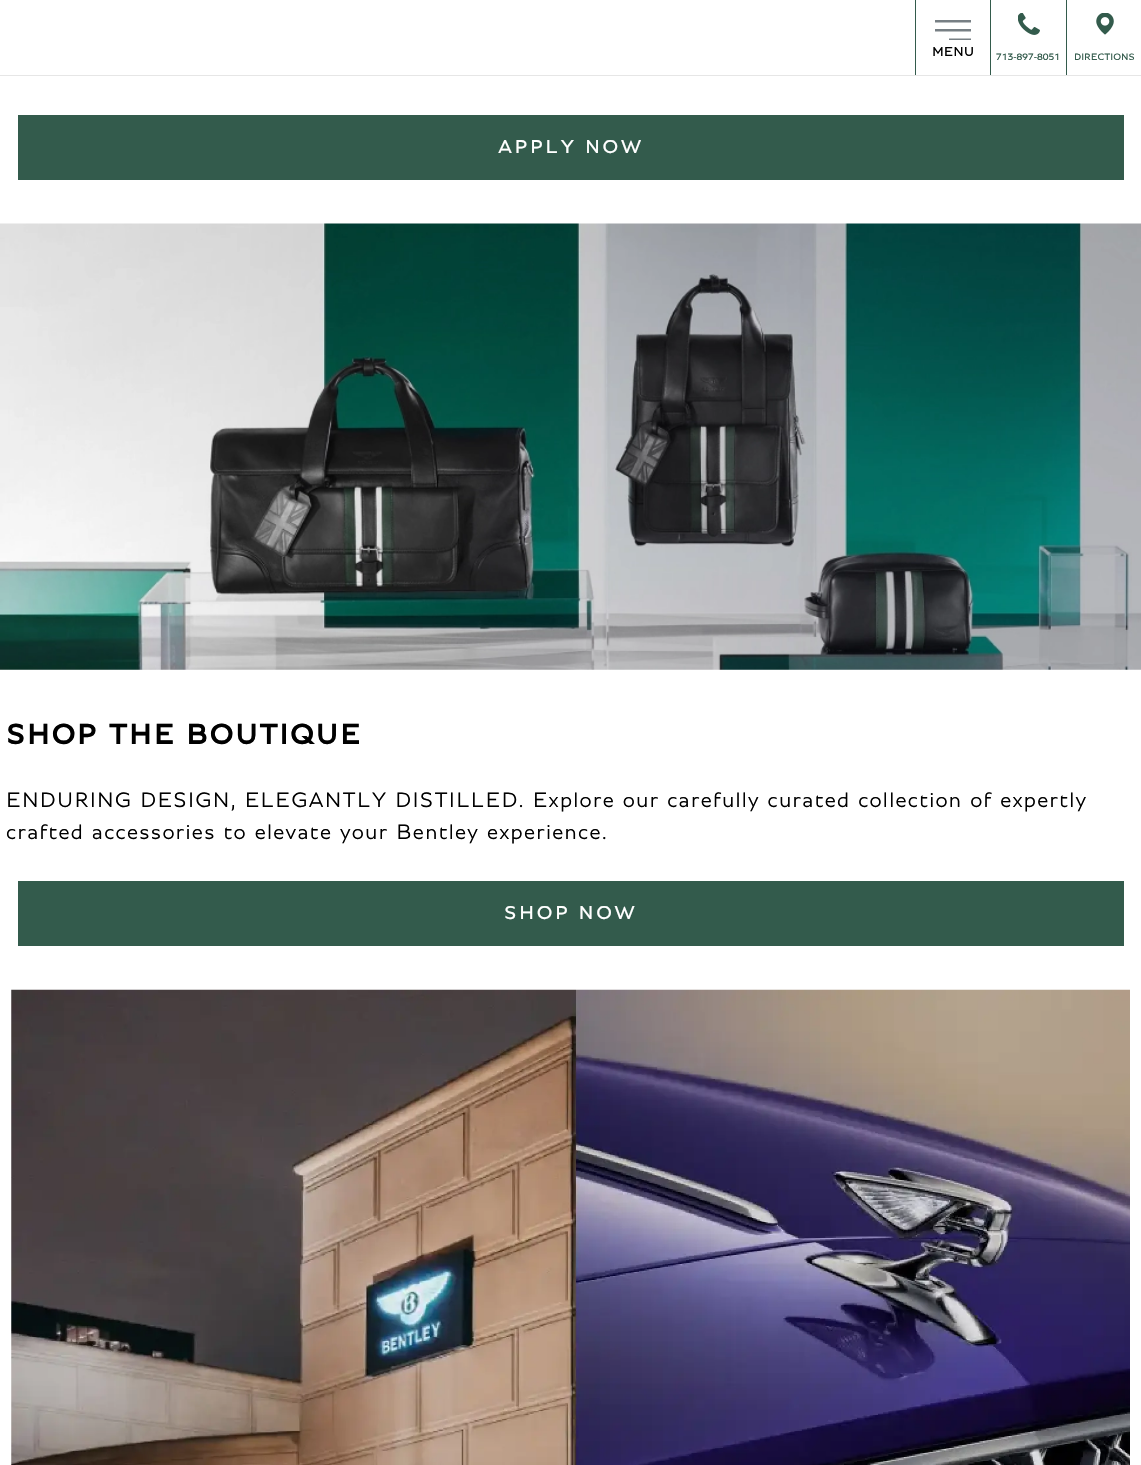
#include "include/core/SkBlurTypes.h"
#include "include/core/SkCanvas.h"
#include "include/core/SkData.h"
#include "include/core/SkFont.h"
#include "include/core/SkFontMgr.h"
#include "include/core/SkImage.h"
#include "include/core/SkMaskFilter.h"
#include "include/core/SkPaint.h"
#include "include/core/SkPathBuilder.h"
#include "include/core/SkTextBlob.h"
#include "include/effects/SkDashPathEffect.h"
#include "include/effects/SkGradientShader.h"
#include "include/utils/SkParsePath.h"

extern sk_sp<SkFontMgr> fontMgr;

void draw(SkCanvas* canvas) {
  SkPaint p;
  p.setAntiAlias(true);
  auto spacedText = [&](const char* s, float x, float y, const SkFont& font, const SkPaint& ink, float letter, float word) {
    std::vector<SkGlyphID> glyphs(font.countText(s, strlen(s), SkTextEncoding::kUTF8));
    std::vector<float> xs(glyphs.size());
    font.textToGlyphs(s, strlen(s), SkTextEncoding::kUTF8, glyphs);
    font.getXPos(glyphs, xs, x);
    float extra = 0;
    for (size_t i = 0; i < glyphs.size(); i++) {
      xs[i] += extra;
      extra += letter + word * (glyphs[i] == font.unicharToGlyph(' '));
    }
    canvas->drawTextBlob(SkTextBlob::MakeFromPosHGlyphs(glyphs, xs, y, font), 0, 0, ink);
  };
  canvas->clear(SK_ColorWHITE);
  p.setColor(SkColorSetRGB(230, 230, 230));
  canvas->drawRect(SkRect::MakeLTRB(0, 75, 1141, 76), p);
  p.setColor(SkColorSetRGB(51, 91, 76));
  canvas->drawRect(SkRect::MakeLTRB(915, 0, 916, 75), p);
  canvas->save();
  canvas->clipRect(SkRect::MakeLTRB(935, 20, 971, 40));
  p.setColor(SkColorSetRGB(119, 127, 132));
  canvas->drawPath(SkPathBuilder(SkPathFillType::kEvenOdd).moveTo(972, 20).lineTo(935, 20).lineTo(935, 22.5f).lineTo(972, 22.5f).close().moveTo(935, 29).lineTo(972, 29).lineTo(972, 31.5f).lineTo(935, 31.5f).close().moveTo(949, 38.5f).lineTo(972, 38.5f).lineTo(972, 40.5f).lineTo(949, 40.5f).close().detach(), p);
  canvas->restore();
  p.setColor(SkColorSetRGB(51, 91, 76));
  canvas->drawRect(SkRect::MakeLTRB(990, 0, 991, 75), p);
  canvas->drawImageRect(SkImages::DeferredFromEncodedData(SkData::MakeFromFileName("images/1.png")), SkRect::MakeLTRB(1018, 13, 1040, 35), SkSamplingOptions());
  canvas->drawRect(SkRect::MakeLTRB(1066, 0, 1067, 75), p);
  canvas->drawImageRect(SkImages::DeferredFromEncodedData(SkData::MakeFromFileName("images/2.png")), SkRect::MakeLTRB(1096, 13, 1114, 35), SkSamplingOptions());
  canvas->drawRect(SkRect::MakeLTRB(18, 115, 1124, 180), p);
  canvas->drawImageRect(SkImages::DeferredFromEncodedData(SkData::MakeFromFileName("images/3.png")), SkRect::MakeLTRB(0, 223, 1141, 670), SkSamplingOptions());
  canvas->drawRect(SkRect::MakeLTRB(18, 881, 1124, 946), p);
  canvas->drawImageRect(SkImages::DeferredFromEncodedData(SkData::MakeFromFileName("images/4.png")), SkRect::MakeLTRB(11, 989, 1130, 1465), SkSamplingOptions());
  SkFont font1(fontMgr->matchFamilyStyle("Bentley", SkFontStyle::Normal()), 14);
  font1.setSubpixel(true);
  p.setColor(SK_ColorBLACK);
  canvas->drawString("MENU", 932, 56, font1, p);
  SkFont font2(fontMgr->matchFamilyStyle("Bentley", SkFontStyle::Normal()), 10);
  font2.setSubpixel(true);
  p.setColor(SkColorSetRGB(51, 91, 76));
  canvas->drawString("713-897-8051", 996, 60, font2, p);
  canvas->drawString("DIRECTIONS", 1074, 60, font2, p);
  SkFont font3(fontMgr->matchFamilyStyle("Bentley", SkFontStyle::Normal()), 20);
  font3.setSubpixel(true);
  p.setColor(SK_ColorWHITE);
  spacedText("APPLY NOW", 498, 153, font3, p, 2.5f, 0);
  SkFont font4(fontMgr->matchFamilyStyle("Bentley", SkFontStyle::Bold()), 30);
  font4.setSubpixel(true);
  p.setColor(SK_ColorBLACK);
  spacedText("SHOP THE BOUTIQUE", 6, 744, font4, p, 1.9f, 0);
  SkFont font5(fontMgr->matchFamilyStyle("Bentley", SkFontStyle(300, SkFontStyle::kNormal_Width, SkFontStyle::kUpright_Slant)), 22.5f);
  font5.setSubpixel(true);
  spacedText("ENDURING DESIGN, ELEGANTLY DISTILLED. Explore our carefully curated collection of expertly", 6, 807, font5, p, 1.25f, 0);
  spacedText("crafted accessories to elevate your Bentley experience.", 6, 839, font5, p, 1.25f, 0);
  p.setColor(SK_ColorWHITE);
  spacedText("SHOP NOW", 504, 919, font3, p, 2.5f, 0);
}
